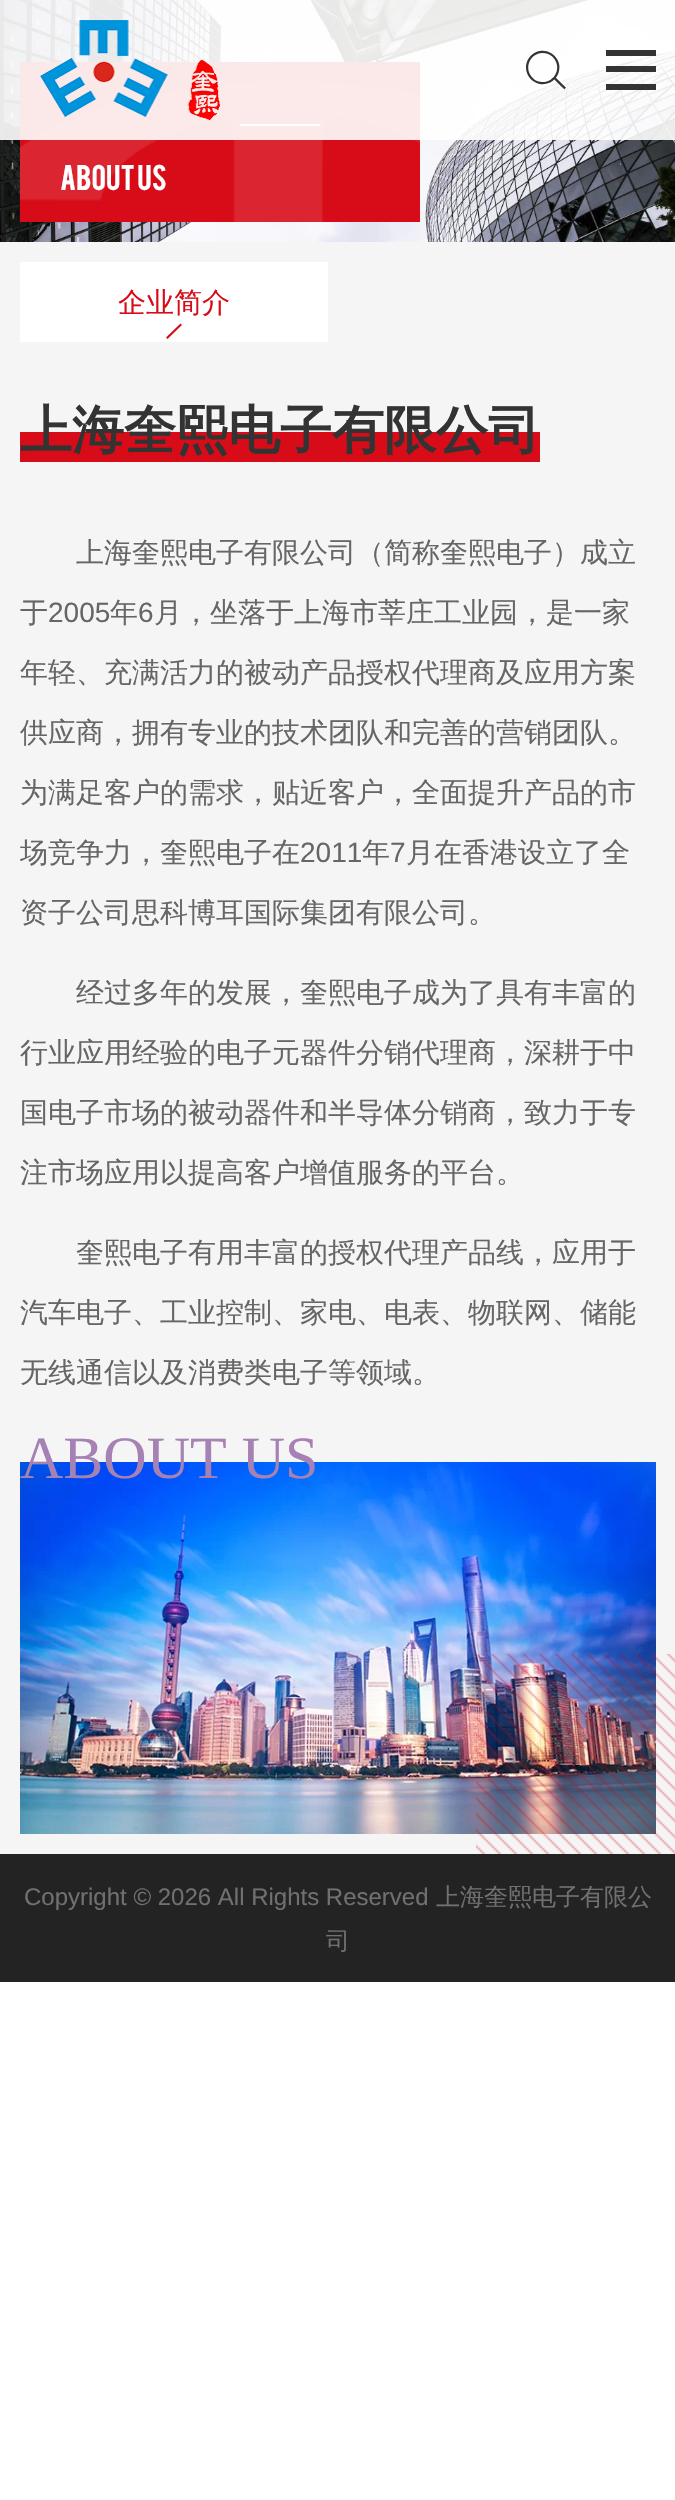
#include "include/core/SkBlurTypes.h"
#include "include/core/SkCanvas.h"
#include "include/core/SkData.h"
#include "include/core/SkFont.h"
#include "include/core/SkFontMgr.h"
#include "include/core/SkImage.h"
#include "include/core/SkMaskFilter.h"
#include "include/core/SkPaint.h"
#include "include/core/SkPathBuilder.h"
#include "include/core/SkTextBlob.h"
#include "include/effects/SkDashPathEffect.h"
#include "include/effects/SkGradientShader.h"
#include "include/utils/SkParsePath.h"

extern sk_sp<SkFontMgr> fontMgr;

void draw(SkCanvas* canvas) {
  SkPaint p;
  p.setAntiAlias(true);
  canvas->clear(SK_ColorWHITE);
  canvas->drawImageRect(SkImages::DeferredFromEncodedData(SkData::MakeFromFileName("images/1.png")), SkRect::MakeLTRB(0, 0, 675, 242), SkSamplingOptions());
  p.setColor(SkColorSetRGB(215, 12, 24));
  canvas->drawRect(SkRect::MakeLTRB(20, 62, 420, 222), p);
  canvas->drawImageRect(SkImages::DeferredFromEncodedData(SkData::MakeFromFileName("images/4.png")), SkRect::MakeLTRB(20, 82, 420, 222), SkSamplingOptions());
  p.setColor(SK_ColorWHITE);
  canvas->drawRect(SkRect::MakeLTRB(240, 124, 320, 126), p);
  p.setColor(SkColorSetARGB(230, 255, 255, 255));
  canvas->drawRect(SkRect::MakeLTRB(0, 0, 675, 140), p);
  canvas->drawImageRect(SkImages::DeferredFromEncodedData(SkData::MakeFromFileName("images/2.png")), SkRect::MakeLTRB(40, 20, 220, 120), SkSamplingOptions());
  canvas->drawImageRect(SkImages::DeferredFromEncodedData(SkData::MakeFromFileName("images/3.png")), SkRect::MakeLTRB(526, 50, 566, 90), SkSamplingOptions());
  p.setColor(SkColorSetRGB(51, 51, 51));
  canvas->drawRect(SkRect::MakeLTRB(606, 50, 656, 56), p);
  canvas->drawRect(SkRect::MakeLTRB(606, 66, 656, 72), p);
  canvas->drawRect(SkRect::MakeLTRB(606, 84, 656, 90), p);
  p.setColor(SkColorSetRGB(245, 245, 245));
  canvas->drawRect(SkRect::MakeLTRB(0, 242, 675, 1854), p);
  p.setColor(SK_ColorWHITE);
  canvas->drawRect(SkRect::MakeLTRB(20, 262, 328, 342), p);
  p.setColor(SkColorSetRGB(215, 12, 24));
  canvas->drawPath(SkPathBuilder().moveTo(166, 337.5f).lineTo(180.5f, 323.5f).lineTo(182, 325).lineTo(167.5f, 339).close().detach(), p);
  canvas->drawRect(SkRect::MakeLTRB(20, 432, 540, 462), p);
  canvas->drawImageRect(SkImages::DeferredFromEncodedData(SkData::MakeFromFileName("images/5.png")), SkRect::MakeLTRB(20, 1462, 656, 1834), SkSamplingOptions());
  canvas->drawImageRect(SkImages::DeferredFromEncodedData(SkData::MakeFromFileName("images/6.png")), SkRect::MakeLTRB(476, 1654, 675, 1854), SkSamplingOptions());
  p.setColor(SkColorSetRGB(35, 35, 35));
  canvas->drawRect(SkRect::MakeLTRB(0, 1854, 675, 1982), p);
  SkFont font1(fontMgr->matchFamilyStyle("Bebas", SkFontStyle::Normal()), 28);
  font1.setSubpixel(true);
  p.setColor(SK_ColorWHITE);
  canvas->drawString("About Us", 60, 190, font1, p);
  SkFont font2(fontMgr->matchFamilyStyle("WenQuanYi Zen Hei", SkFontStyle(500, SkFontStyle::kNormal_Width, SkFontStyle::kUpright_Slant)), 28);
  font2.setSubpixel(true);
  p.setColor(SkColorSetRGB(215, 12, 24));
  canvas->drawString("企业简介", 118, 312, font2, p);
  SkFont font3(fontMgr->matchFamilyStyle("WenQuanYi Zen Hei", SkFontStyle::Bold()), 52);
  font3.setSubpixel(true);
  p.setColor(SkColorSetRGB(51, 51, 51));
  canvas->drawString("上海奎熙电子有限公司", 20, 448, font3, p);
  p.setColor(SkColorSetRGB(102, 102, 102));
  canvas->drawString("上海奎熙电子有限公司（简称奎熙电子）成立", 76, 562, font2, p);
  canvas->drawString("于", 20, 622, font2, p);
  SkFont font4(fontMgr->matchFamilyStyle("Liberation Sans", SkFontStyle::Normal()), 28);
  font4.setSubpixel(true);
  canvas->drawString("2005", 48, 622, font4, p);
  canvas->drawString("年", 110, 622, font2, p);
  canvas->drawString("6", 138, 622, font4, p);
  canvas->drawString("月，坐落于上海市莘庄工业园，是一家", 154, 622, font2, p);
  canvas->drawString("年轻、充满活力的被动产品授权代理商及应用方案", 20, 682, font2, p);
  canvas->drawString("供应商，拥有专业的技术团队和完善的营销团队。", 20, 742, font2, p);
  canvas->drawString("为满足客户的需求，贴近客户，全面提升产品的市", 20, 802, font2, p);
  canvas->drawString("场竞争力，奎熙电子在", 20, 862, font2, p);
  canvas->drawString("2011", 300, 862, font4, p);
  canvas->drawString("年", 362, 862, font2, p);
  canvas->drawString("7", 390, 862, font4, p);
  canvas->drawString("月在香港设立了全", 406, 862, font2, p);
  canvas->drawString("资子公司思科博耳国际集团有限公司。", 20, 922, font2, p);
  canvas->drawString("经过多年的发展，奎熙电子成为了具有丰富的", 76, 1002, font2, p);
  canvas->drawString("行业应用经验的电子元器件分销代理商，深耕于中", 20, 1062, font2, p);
  canvas->drawString("国电子市场的被动器件和半导体分销商，致力于专", 20, 1122, font2, p);
  canvas->drawString("注市场应用以提高客户增值服务的平台。", 20, 1182, font2, p);
  canvas->drawString("奎熙电子有用丰富的授权代理产品线，应用于", 76, 1262, font2, p);
  canvas->drawString("汽车电子、工业控制、家电、电表、物联网、储能", 20, 1322, font2, p);
  canvas->drawString("无线通信以及消费类电子等领域。", 20, 1382, font2, p);
  SkFont font5(fontMgr->matchFamilyStyle("Liberation Serif", SkFontStyle::Normal()), 60);
  font5.setSubpixel(true);
  p.setColor(SkColorSetRGB(166, 129, 179));
  canvas->drawString("ABOUT US", 20, 1478, font5, p);
  SkFont font6(fontMgr->matchFamilyStyle("Liberation Sans", SkFontStyle::Normal()), 24);
  font6.setSubpixel(true);
  p.setColor(SkColorSetRGB(113, 112, 112));
  canvas->drawString("Copyright © 2026 All Rights Reserved", 24, 1905, font6, p);
  SkFont font7(fontMgr->matchFamilyStyle("WenQuanYi Zen Hei", SkFontStyle(500, SkFontStyle::kNormal_Width, SkFontStyle::kUpright_Slant)), 24);
  font7.setSubpixel(true);
  canvas->drawString("上海奎熙电子有限公", 436, 1905, font7, p);
  canvas->drawString("司", 326, 1949, font7, p);
}
